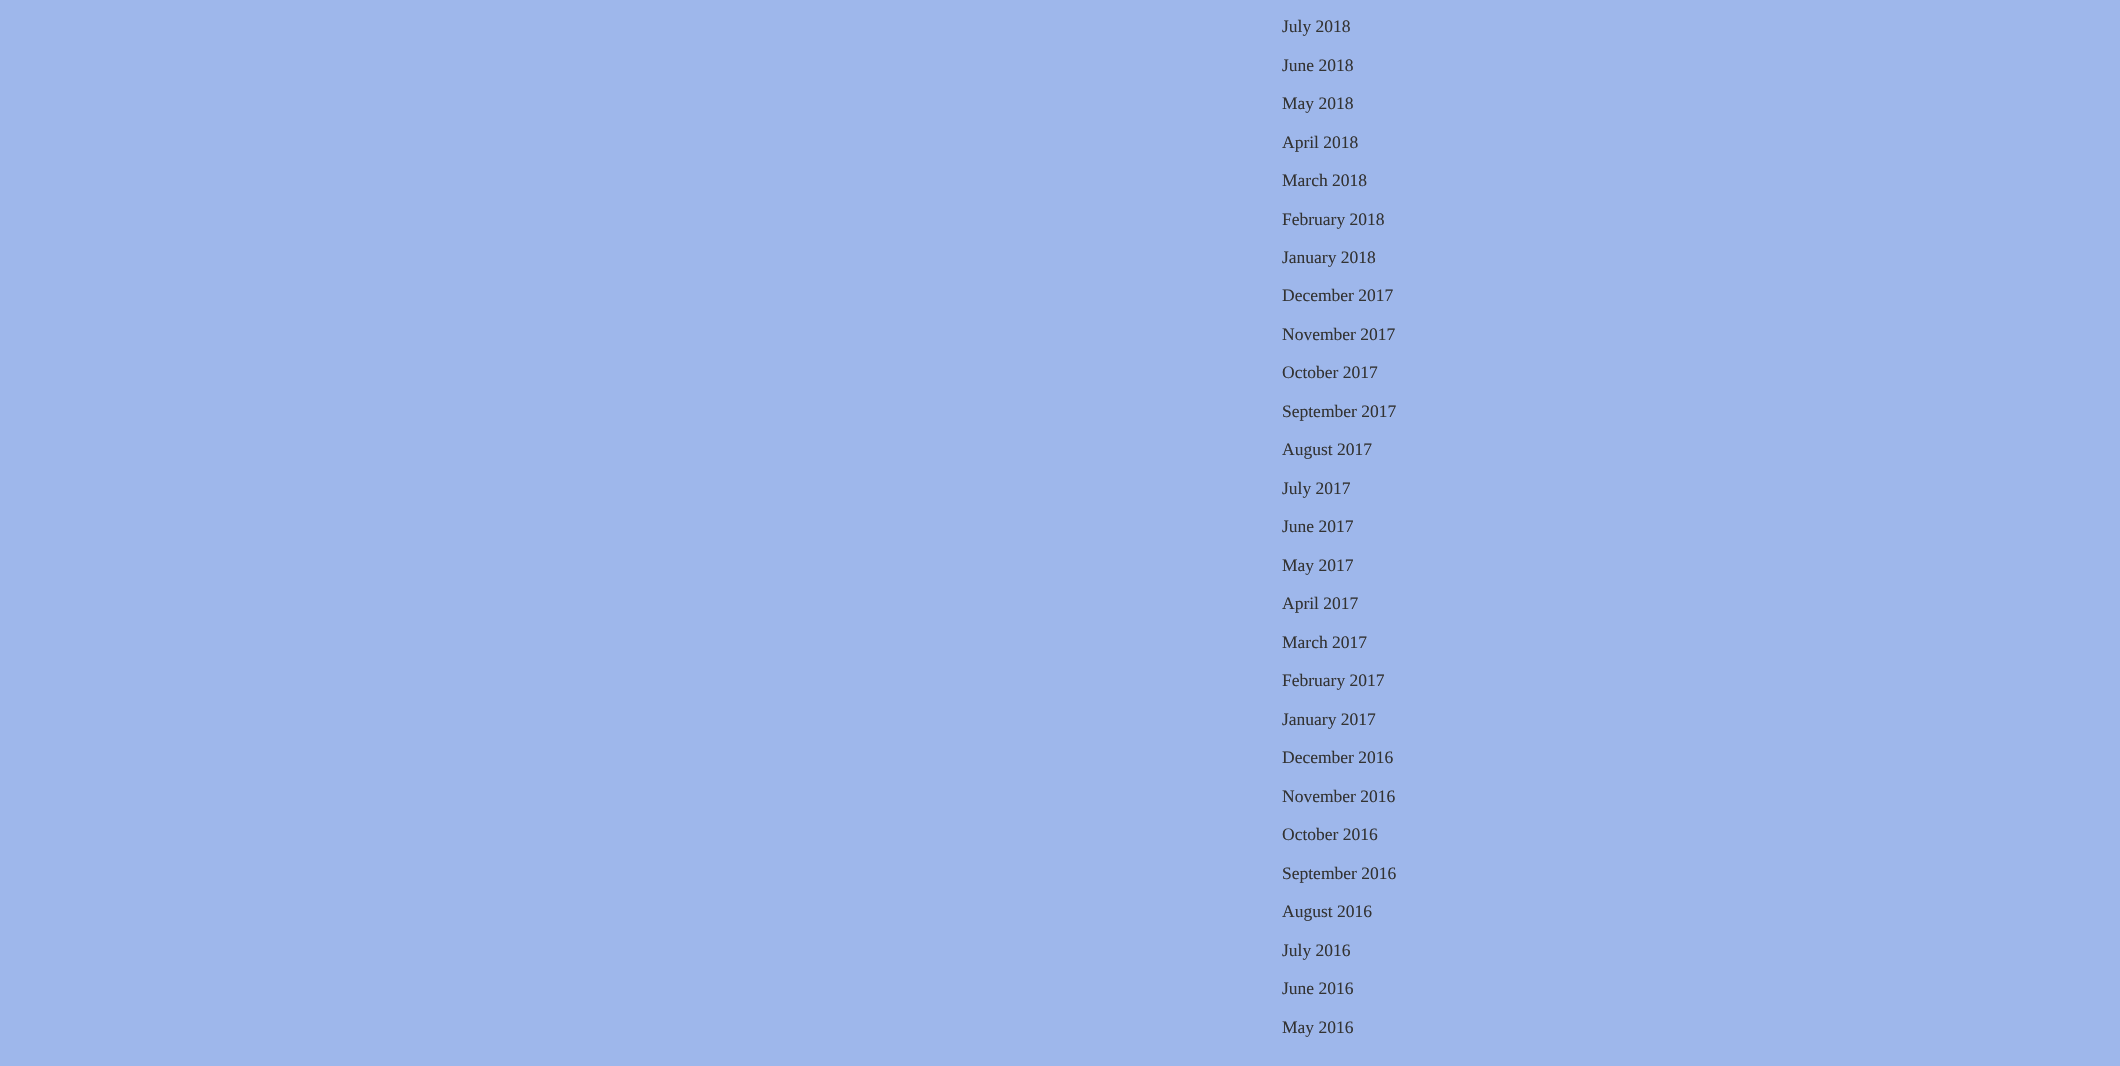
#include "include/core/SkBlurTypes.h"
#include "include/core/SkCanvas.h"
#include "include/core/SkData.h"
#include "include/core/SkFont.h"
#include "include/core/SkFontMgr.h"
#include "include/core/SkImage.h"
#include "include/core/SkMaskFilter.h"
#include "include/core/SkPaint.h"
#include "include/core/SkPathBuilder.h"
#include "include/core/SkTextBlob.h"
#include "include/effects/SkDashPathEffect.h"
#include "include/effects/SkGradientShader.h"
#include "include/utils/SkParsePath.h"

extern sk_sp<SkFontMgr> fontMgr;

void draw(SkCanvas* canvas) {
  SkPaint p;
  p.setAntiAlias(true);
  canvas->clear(SkColorSetRGB(158, 183, 235));
  SkFont font1(fontMgr->matchFamilyStyle("Liberation Serif", SkFontStyle::Normal()), 17.5f);
  font1.setSubpixel(true);
  p.setColor(SkColorSetRGB(51, 51, 51));
  canvas->drawString("July 2018", 1282, 32, font1, p);
  canvas->drawString("June 2018", 1282, 71, font1, p);
  canvas->drawString("May 2018", 1282, 109, font1, p);
  canvas->drawString("April 2018", 1282, 148, font1, p);
  canvas->drawString("March 2018", 1282, 186, font1, p);
  canvas->drawString("February 2018", 1282, 225, font1, p);
  canvas->drawString("January 2018", 1282, 263, font1, p);
  canvas->drawString("December 2017", 1282, 301, font1, p);
  canvas->drawString("November 2017", 1282, 340, font1, p);
  canvas->drawString("October 2017", 1282, 378, font1, p);
  canvas->drawString("September 2017", 1282, 417, font1, p);
  canvas->drawString("August 2017", 1282, 455, font1, p);
  canvas->drawString("July 2017", 1282, 494, font1, p);
  canvas->drawString("June 2017", 1282, 532, font1, p);
  canvas->drawString("May 2017", 1282, 571, font1, p);
  canvas->drawString("April 2017", 1282, 609, font1, p);
  canvas->drawString("March 2017", 1282, 648, font1, p);
  canvas->drawString("February 2017", 1282, 686, font1, p);
  canvas->drawString("January 2017", 1282, 725, font1, p);
  canvas->drawString("December 2016", 1282, 763, font1, p);
  canvas->drawString("November 2016", 1282, 802, font1, p);
  canvas->drawString("October 2016", 1282, 840, font1, p);
  canvas->drawString("September 2016", 1282, 879, font1, p);
  canvas->drawString("August 2016", 1282, 917, font1, p);
  canvas->drawString("July 2016", 1282, 956, font1, p);
  canvas->drawString("June 2016", 1282, 994, font1, p);
  canvas->drawString("May 2016", 1282, 1033, font1, p);
}
